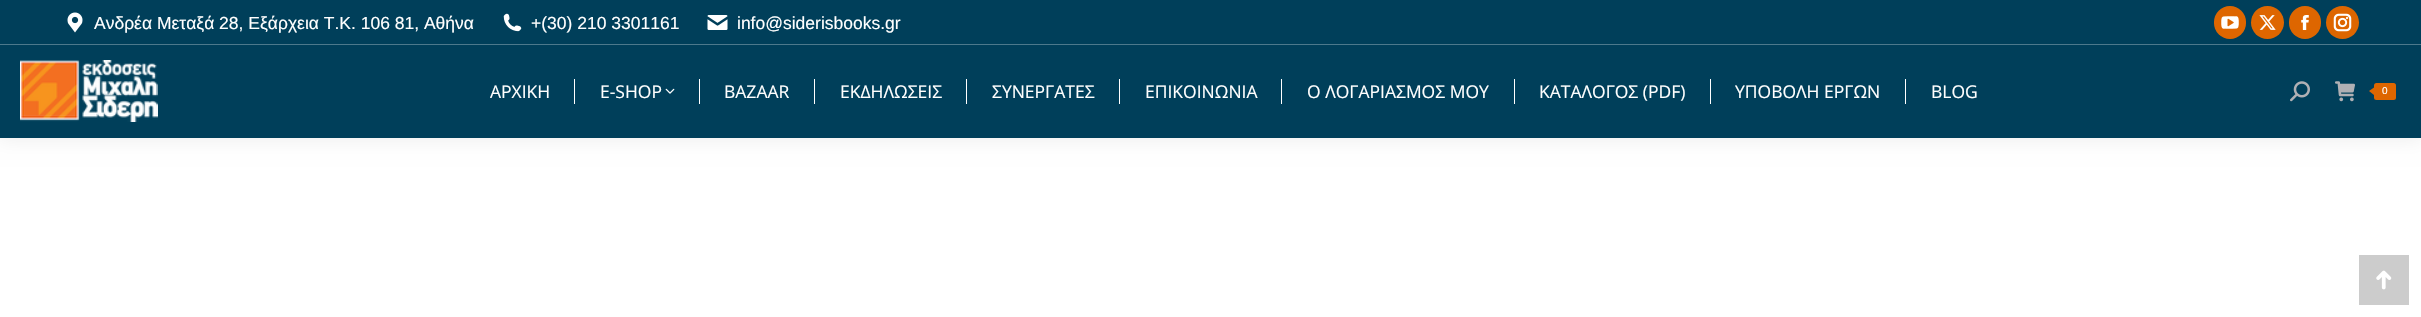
#include "include/core/SkBlurTypes.h"
#include "include/core/SkCanvas.h"
#include "include/core/SkData.h"
#include "include/core/SkFont.h"
#include "include/core/SkFontMgr.h"
#include "include/core/SkImage.h"
#include "include/core/SkMaskFilter.h"
#include "include/core/SkPaint.h"
#include "include/core/SkPathBuilder.h"
#include "include/core/SkTextBlob.h"
#include "include/effects/SkDashPathEffect.h"
#include "include/effects/SkGradientShader.h"
#include "include/utils/SkParsePath.h"

extern sk_sp<SkFontMgr> fontMgr;

void draw(SkCanvas* canvas) {
  SkPaint p;
  p.setAntiAlias(true);
  canvas->clear(SK_ColorWHITE);
  p.setColor(SkColorSetARGB(18, 0, 0, 0));
  p.setMaskFilter(SkMaskFilter::MakeBlur(kNormal_SkBlurStyle, 9.5f));
  canvas->drawRect(SkRect::MakeLTRB(-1, -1, 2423, 139), p);
  p.setMaskFilter(nullptr);
  p.setColor(SkColorSetRGB(0, 63, 90));
  canvas->drawRect(SkRect::MakeLTRB(0, 0, 2421, 138), p);
  canvas->drawImageRect(SkImages::DeferredFromEncodedData(SkData::MakeFromFileName("images/1.png")), SkRect::MakeLTRB(67, 12, 83, 33), SkSamplingOptions());
  canvas->drawImageRect(SkImages::DeferredFromEncodedData(SkData::MakeFromFileName("images/2.png")), SkRect::MakeLTRB(503, 13, 522, 32), SkSamplingOptions());
  canvas->drawImageRect(SkImages::DeferredFromEncodedData(SkData::MakeFromFileName("images/3.png")), SkRect::MakeLTRB(707, 15, 728, 30), SkSamplingOptions());
  p.setColor(SkColorSetRGB(222, 102, 0));
  canvas->drawRoundRect(SkRect::MakeLTRB(2214, 6, 2246, 39), 16, 16, p);
  canvas->drawImageRect(SkImages::DeferredFromEncodedData(SkData::MakeFromFileName("images/4.png")), SkRect::MakeLTRB(2221, 16, 2239, 29), SkSamplingOptions());
  canvas->drawCircle(2267.5f, 22.5f, 16.5f, p);
  canvas->drawImageRect(SkImages::DeferredFromEncodedData(SkData::MakeFromFileName("images/5.png")), SkRect::MakeLTRB(2259, 15, 2276, 30), SkSamplingOptions());
  canvas->drawRoundRect(SkRect::MakeLTRB(2289, 6, 2321, 39), 16, 16, p);
  canvas->drawImageRect(SkImages::DeferredFromEncodedData(SkData::MakeFromFileName("images/6.png")), SkRect::MakeLTRB(2301, 15, 2309, 30), SkSamplingOptions());
  canvas->drawCircle(2342.5f, 22.5f, 16.5f, p);
  canvas->drawImageRect(SkImages::DeferredFromEncodedData(SkData::MakeFromFileName("images/7.png")), SkRect::MakeLTRB(2333, 13, 2352, 32), SkSamplingOptions());
  p.setColor(SkColorSetRGB(77, 121, 140));
  canvas->drawRect(SkRect::MakeLTRB(0, 44, 2421, 45), p);
  canvas->drawImageRect(SkImages::DeferredFromEncodedData(SkData::MakeFromFileName("images/8.png")), SkRect::MakeLTRB(20, 60, 158, 122), SkSamplingOptions());
  p.setColor(SK_ColorWHITE);
  canvas->drawRect(SkRect::MakeLTRB(574, 79, 575, 104), p);
  canvas->drawImageRect(SkImages::DeferredFromEncodedData(SkData::MakeFromFileName("images/9.png")), SkRect::MakeLTRB(665, 88, 675, 94), SkSamplingOptions());
  canvas->drawRect(SkRect::MakeLTRB(699, 79, 700, 104), p);
  canvas->drawRect(SkRect::MakeLTRB(814, 79, 815, 104), p);
  canvas->drawRect(SkRect::MakeLTRB(966, 79, 967, 104), p);
  canvas->drawRect(SkRect::MakeLTRB(1119, 79, 1120, 104), p);
  canvas->drawRect(SkRect::MakeLTRB(1281, 79, 1282, 104), p);
  canvas->drawRect(SkRect::MakeLTRB(1514, 79, 1515, 104), p);
  canvas->drawRect(SkRect::MakeLTRB(1710, 79, 1711, 104), p);
  canvas->drawRect(SkRect::MakeLTRB(1905, 79, 1906, 104), p);
  canvas->drawImageRect(SkImages::DeferredFromEncodedData(SkData::MakeFromFileName("images/10.png")), SkRect::MakeLTRB(2290, 81, 2310, 102), SkSamplingOptions());
  canvas->drawImageRect(SkImages::DeferredFromEncodedData(SkData::MakeFromFileName("images/11.png")), SkRect::MakeLTRB(2335, 81, 2355, 102), SkSamplingOptions());
  p.setColor(SkColorSetRGB(222, 102, 0));
  canvas->drawRoundRect(SkRect::MakeLTRB(2374, 83, 2396, 100), 2.5f, 2.5f, p);
  canvas->drawPath(SkPathBuilder().moveTo(2374, 87.5f).lineTo(2374, 95).lineTo(2369, 91).close().detach(), p);
  p.setColor(SkColorSetRGB(204, 204, 204));
  canvas->drawRect(SkRect::MakeLTRB(2359, 255, 2409, 305), p);
  canvas->drawImageRect(SkImages::DeferredFromEncodedData(SkData::MakeFromFileName("images/12.png")), SkRect::MakeLTRB(2376, 270, 2392, 290), SkSamplingOptions());
  SkFont font1(fontMgr->matchFamilyStyle("Liberation Sans", SkFontStyle::Normal()), 17.5f);
  font1.setSubpixel(true);
  p.setColor(SK_ColorWHITE);
  canvas->drawString("Ανδρέα Μεταξά 28, Εξάρχεια Τ.Κ. 106 81, Αθήνα", 94, 29, font1, p);
  canvas->drawString("+(30) 210 3301161", 531, 29, font1, p);
  canvas->drawString("info@siderisbooks.gr", 737, 29, font1, p);
  SkFont font2(fontMgr->matchFamilyStyle("Open Sans", SkFontStyle::Normal()), 17.5f);
  font2.setSubpixel(true);
  canvas->drawString("ΑΡΧΙΚΗ", 490, 98, font2, p);
  canvas->drawString("E-SHOP", 600, 98, font2, p);
  canvas->drawString("BAZAAR", 724, 98, font2, p);
  canvas->drawString("ΕΚΔΗΛΩΣΕΙΣ", 840, 98, font2, p);
  canvas->drawString("ΣΥΝΕΡΓΑΤΕΣ", 992, 98, font2, p);
  canvas->drawString("ΕΠΙΚΟΙΝΩΝΙΑ", 1145, 98, font2, p);
  canvas->drawString("Ο ΛΟΓΑΡΙΑΣΜΟΣ ΜΟΥ", 1307, 98, font2, p);
  canvas->drawString("ΚΑΤΑΛΟΓΟΣ (PDF)", 1539, 98, font2, p);
  canvas->drawString("ΥΠΟΒΟΛΗ ΕΡΓΩΝ", 1735, 98, font2, p);
  canvas->drawString("BLOG", 1931, 98, font2, p);
  SkFont font3(fontMgr->matchFamilyStyle("Liberation Sans", SkFontStyle::Normal()), 10);
  font3.setSubpixel(true);
  canvas->drawString("0", 2382, 94, font3, p);
}
